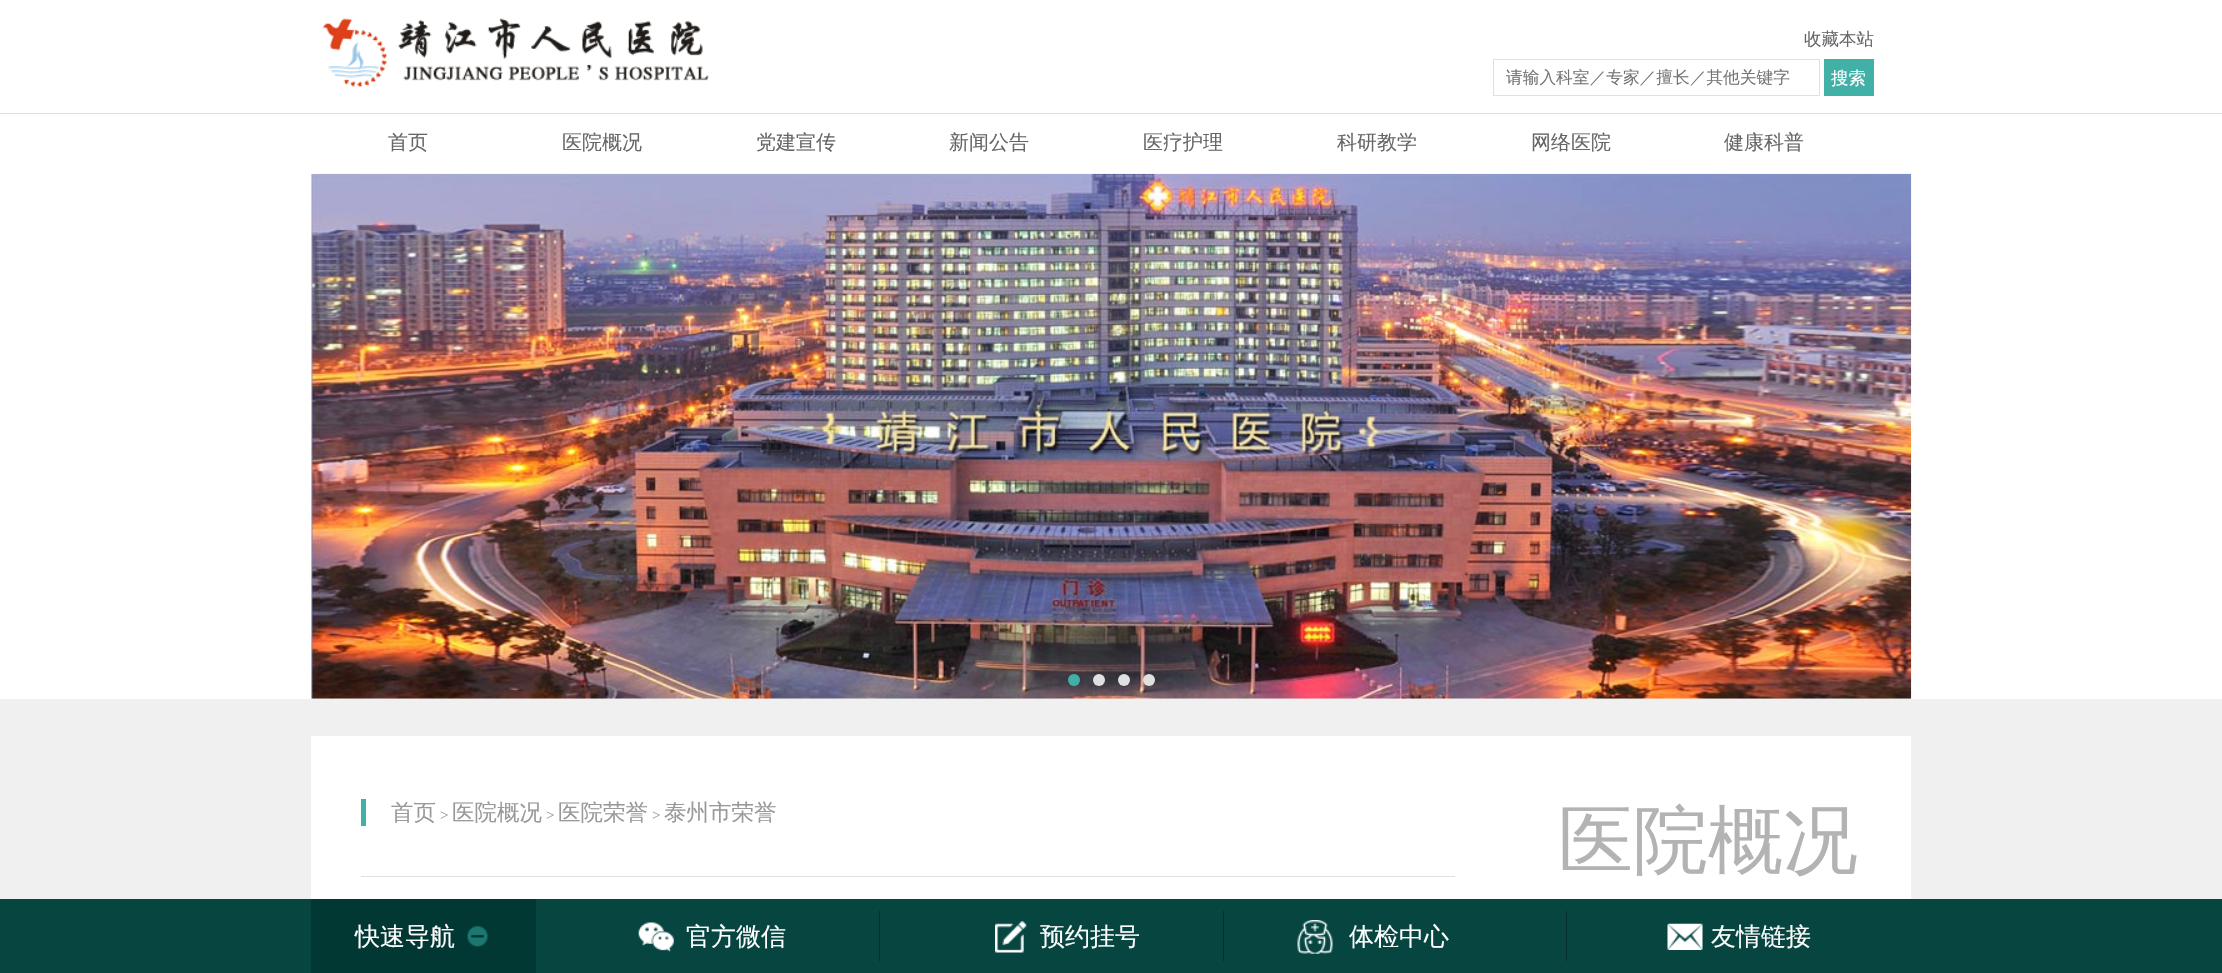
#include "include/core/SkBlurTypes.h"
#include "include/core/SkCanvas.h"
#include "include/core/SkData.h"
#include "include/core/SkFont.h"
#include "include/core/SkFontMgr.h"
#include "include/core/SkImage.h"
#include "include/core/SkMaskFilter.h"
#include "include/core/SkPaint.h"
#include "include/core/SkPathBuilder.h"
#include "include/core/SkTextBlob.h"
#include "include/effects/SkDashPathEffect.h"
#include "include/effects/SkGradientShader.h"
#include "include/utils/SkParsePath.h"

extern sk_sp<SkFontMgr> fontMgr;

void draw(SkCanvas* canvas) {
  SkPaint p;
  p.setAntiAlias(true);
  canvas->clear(SK_ColorWHITE);
  p.setColor(SkColorSetRGB(224, 224, 224));
  canvas->drawRect(SkRect::MakeLTRB(0, 113, 2222, 114), p);
  canvas->drawImageRect(SkImages::DeferredFromEncodedData(SkData::MakeFromFileName("images/1.png")), SkRect::MakeLTRB(322, 18, 709, 87), SkSamplingOptions());
  p.setStyle(SkPaint::kStroke_Style);
  p.setStrokeWidth(1);
  canvas->drawRect(SkRect::MakeLTRB(1493.5f, 59.5f, 1819.5f, 95.5f), p);
  p.setStyle(SkPaint::kFill_Style);
  p.setColor(SkColorSetRGB(65, 176, 167));
  canvas->drawRect(SkRect::MakeLTRB(1824, 59, 1874, 96), p);
  canvas->drawImageRect(SkImages::DeferredFromEncodedData(SkData::MakeFromFileName("images/2.png")), SkRect::MakeLTRB(311, 173, 1912, 699), SkSamplingOptions());
  canvas->drawCircle(1074, 680, 6, p);
  p.setColor(SkColorSetRGB(224, 224, 224));
  canvas->drawCircle(1099, 680, 6, p);
  canvas->drawCircle(1124, 680, 6, p);
  canvas->drawCircle(1149, 680, 6, p);
  p.setColor(SkColorSetRGB(240, 240, 240));
  canvas->drawRect(SkRect::MakeLTRB(0, 699, 2222, 899), p);
  p.setColor(SK_ColorWHITE);
  canvas->drawRect(SkRect::MakeLTRB(311, 736, 1911, 899), p);
  p.setColor(SkColorSetRGB(224, 224, 224));
  canvas->drawRect(SkRect::MakeLTRB(361, 876, 1455, 877), p);
  p.setColor(SkColorSetRGB(65, 176, 167));
  canvas->drawRect(SkRect::MakeLTRB(361, 799, 366, 826), p);
  p.setColor(SkColorSetRGB(7, 69, 64));
  canvas->drawRect(SkRect::MakeLTRB(0, 899, 2222, 973), p);
  p.setColor(SkColorSetRGB(2, 56, 52));
  canvas->drawRect(SkRect::MakeLTRB(311, 899, 536, 973), p);
  canvas->drawImageRect(SkImages::DeferredFromEncodedData(SkData::MakeFromFileName("images/3.png")), SkRect::MakeLTRB(467, 926, 488, 947), SkSamplingOptions());
  canvas->drawImageRect(SkImages::DeferredFromEncodedData(SkData::MakeFromFileName("images/4.png")), SkRect::MakeLTRB(638, 922, 674, 952), SkSamplingOptions());
  p.setColor(SkColorSetRGB(5, 47, 44));
  canvas->drawRect(SkRect::MakeLTRB(879, 911, 880, 961), p);
  canvas->drawImageRect(SkImages::DeferredFromEncodedData(SkData::MakeFromFileName("images/5.png")), SkRect::MakeLTRB(995, 921, 1027, 953), SkSamplingOptions());
  canvas->drawRect(SkRect::MakeLTRB(1223, 911, 1224, 961), p);
  canvas->drawImageRect(SkImages::DeferredFromEncodedData(SkData::MakeFromFileName("images/6.png")), SkRect::MakeLTRB(1297, 920, 1333, 954), SkSamplingOptions());
  canvas->drawRect(SkRect::MakeLTRB(1566, 911, 1567, 961), p);
  canvas->drawImageRect(SkImages::DeferredFromEncodedData(SkData::MakeFromFileName("images/7.png")), SkRect::MakeLTRB(1667, 923, 1703, 950), SkSamplingOptions());
  SkFont font1(fontMgr->matchFamilyStyle("WenQuanYi Zen Hei", SkFontStyle(500, SkFontStyle::kNormal_Width, SkFontStyle::kUpright_Slant)), 17.5f);
  font1.setSubpixel(true);
  p.setColor(SkColorSetRGB(102, 102, 102));
  canvas->drawString("收藏本站", 1804, 45, font1, p);
  SkFont font2(fontMgr->matchFamilyStyle("WenQuanYi Zen Hei", SkFontStyle(500, SkFontStyle::kNormal_Width, SkFontStyle::kUpright_Slant)), 16.7f);
  font2.setSubpixel(true);
  p.setColor(SkColorSetRGB(117, 117, 117));
  canvas->drawString("请输入科室／专家／擅长／其他关键字", 1506, 83, font2, p);
  p.setColor(SK_ColorWHITE);
  canvas->drawString("搜索", 1831, 84, font1, p);
  SkFont font3(fontMgr->matchFamilyStyle("WenQuanYi Zen Hei", SkFontStyle(500, SkFontStyle::kNormal_Width, SkFontStyle::kUpright_Slant)), 20);
  font3.setSubpixel(true);
  p.setColor(SkColorSetRGB(102, 102, 102));
  canvas->drawString("首页", 388, 149, font3, p);
  canvas->drawString("医院概况", 562, 149, font3, p);
  canvas->drawString("党建宣传", 756, 149, font3, p);
  canvas->drawString("新闻公告", 949, 149, font3, p);
  canvas->drawString("医疗护理", 1143, 149, font3, p);
  canvas->drawString("科研教学", 1337, 149, font3, p);
  canvas->drawString("网络医院", 1531, 149, font3, p);
  canvas->drawString("健康科普", 1724, 149, font3, p);
  SkFont font4(fontMgr->matchFamilyStyle("WenQuanYi Zen Hei", SkFontStyle(500, SkFontStyle::kNormal_Width, SkFontStyle::kUpright_Slant)), 22.5f);
  font4.setSubpixel(true);
  p.setColor(SkColorSetRGB(153, 153, 153));
  canvas->drawString("首页", 391, 820, font4, p);
  SkFont font5(fontMgr->matchFamilyStyle("Liberation Serif", SkFontStyle::Normal()), 15);
  font5.setSubpixel(true);
  canvas->drawString(">", 440, 820, font5, p);
  canvas->drawString("医院概况", 452, 820, font4, p);
  canvas->drawString(">", 546, 820, font5, p);
  canvas->drawString("医院荣誉", 558, 820, font4, p);
  canvas->drawString(">", 652, 820, font5, p);
  canvas->drawString("泰州市荣誉", 664, 820, font4, p);
  SkFont font6(fontMgr->matchFamilyStyle("WenQuanYi Zen Hei", SkFontStyle(500, SkFontStyle::kNormal_Width, SkFontStyle::kUpright_Slant)), 75);
  font6.setSubpixel(true);
  p.setColor(SkColorSetRGB(179, 179, 179));
  canvas->drawString("医院概况", 1558, 866, font6, p);
  SkFont font7(fontMgr->matchFamilyStyle("WenQuanYi Zen Hei", SkFontStyle(500, SkFontStyle::kNormal_Width, SkFontStyle::kUpright_Slant)), 25);
  font7.setSubpixel(true);
  p.setColor(SK_ColorWHITE);
  canvas->drawString("快速导航", 355, 945, font7, p);
  canvas->drawString("官方微信", 686, 945, font7, p);
  canvas->drawString("预约挂号", 1040, 945, font7, p);
  canvas->drawString("体检中心", 1349, 945, font7, p);
  canvas->drawString("友情链接", 1711, 945, font7, p);
}
